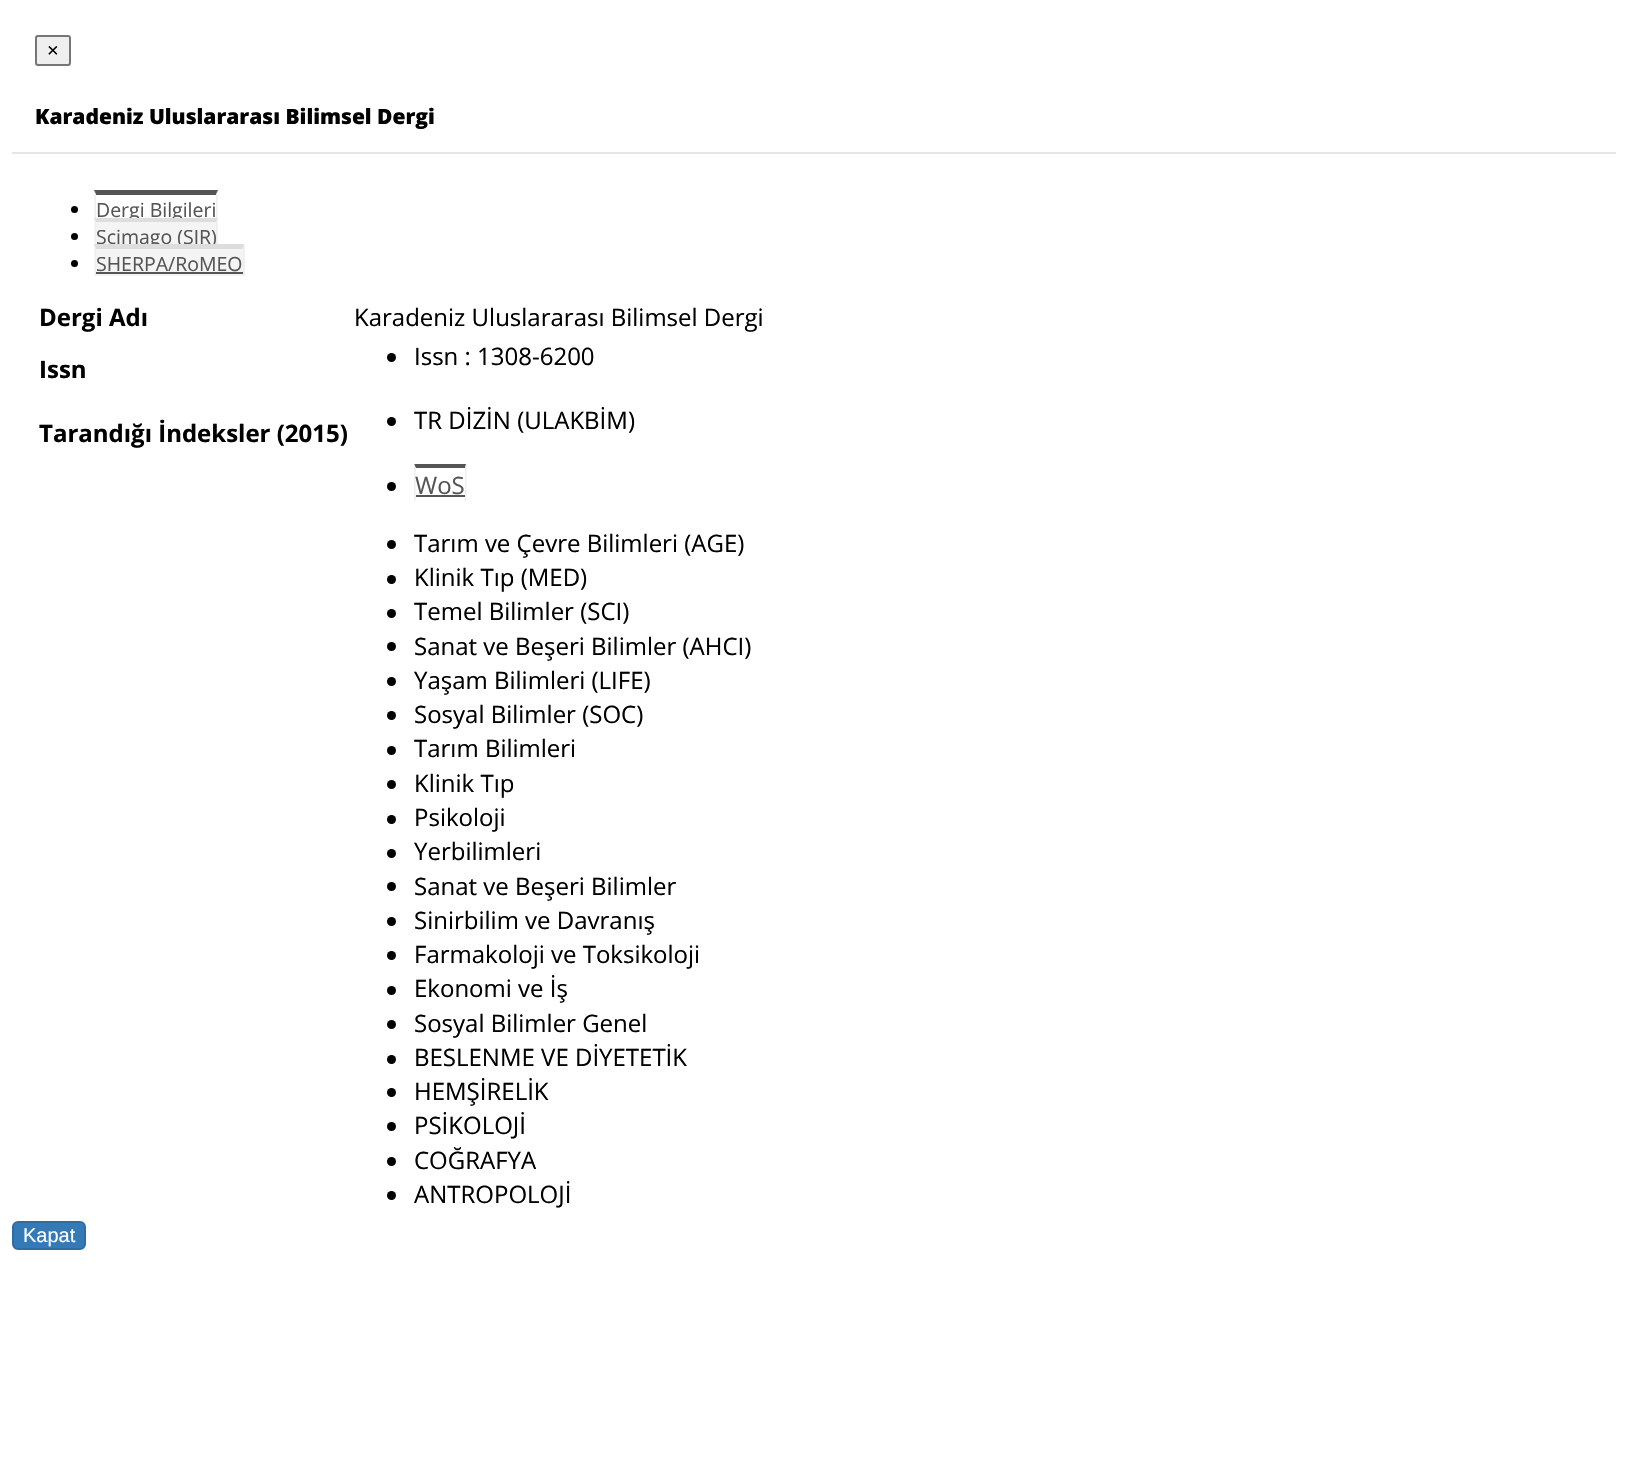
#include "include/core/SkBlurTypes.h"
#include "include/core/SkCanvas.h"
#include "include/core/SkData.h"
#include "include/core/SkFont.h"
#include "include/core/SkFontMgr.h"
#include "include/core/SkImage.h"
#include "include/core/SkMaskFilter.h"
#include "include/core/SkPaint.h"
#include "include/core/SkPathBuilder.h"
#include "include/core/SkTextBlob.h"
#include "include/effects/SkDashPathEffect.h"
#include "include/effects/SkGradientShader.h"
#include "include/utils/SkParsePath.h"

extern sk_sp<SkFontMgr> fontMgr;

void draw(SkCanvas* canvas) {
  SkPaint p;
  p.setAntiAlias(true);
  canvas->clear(SK_ColorWHITE);
  p.setColor(SkColorSetRGB(229, 229, 229));
  canvas->drawRect(SkRect::MakeLTRB(12, 152, 1616, 154), p);
  p.setColor(SkColorSetRGB(239, 239, 239));
  canvas->drawRoundRect(SkRect::MakeLTRB(36, 36, 70, 65), 2, 2, p);
  p.setStyle(SkPaint::kStroke_Style);
  p.setStrokeWidth(2);
  p.setColor(SkColorSetRGB(118, 118, 118));
  canvas->drawRoundRect(SkRect::MakeLTRB(36, 36, 70, 65), 2, 2, p);
  p.setStyle(SkPaint::kFill_Style);
  p.setColor(SK_ColorBLACK);
  canvas->drawCircle(74.5f, 209.5f, 3.5f, p);
  p.setColor(SkColorSetRGB(85, 85, 85));
  canvas->drawPath(SkPathBuilder().moveTo(94, 190).lineTo(218, 190).lineTo(216, 195).lineTo(96, 195).close().detach(), p);
  p.setColor(SkColorSetRGB(238, 238, 238));
  canvas->drawPath(SkPathBuilder().moveTo(217.5f, 190.5f).lineTo(217.5f, 222).lineTo(216, 222).lineTo(216, 195).close().detach(), p);
  canvas->drawPath(SkPathBuilder().moveTo(94.5f, 222).lineTo(94.5f, 190.5f).lineTo(96, 195).lineTo(96, 222).close().detach(), p);
  p.setColor(SK_ColorBLACK);
  canvas->drawCircle(74.5f, 236.5f, 3.5f, p);
  canvas->drawCircle(74.5f, 263.5f, 3.5f, p);
  canvas->drawCircle(391.5f, 357.5f, 4.5f, p);
  canvas->drawCircle(391.5f, 421.5f, 4.5f, p);
  canvas->drawCircle(391.5f, 486.5f, 4.5f, p);
  p.setColor(SkColorSetRGB(85, 85, 85));
  canvas->drawPath(SkPathBuilder().moveTo(414, 464).lineTo(466, 464).lineTo(465, 468).lineTo(416, 468).close().detach(), p);
  p.setColor(SkColorSetRGB(238, 238, 238));
  canvas->drawPath(SkPathBuilder().moveTo(466.5f, 463.5f).lineTo(466.5f, 501).lineTo(465, 501).lineTo(465, 468).close().moveTo(414, 501).lineTo(414, 463.5f).lineTo(415.5f, 468).lineTo(415.5f, 501).close().detach(), p);
  p.setColor(SkColorSetRGB(85, 85, 85));
  canvas->drawRect(SkRect::MakeLTRB(416, 495, 465, 497), p);
  p.setColor(SK_ColorBLACK);
  canvas->drawCircle(391.5f, 544.5f, 4.5f, p);
  canvas->drawCircle(391.5f, 579.5f, 4.5f, p);
  canvas->drawCircle(391.5f, 613.5f, 4.5f, p);
  canvas->drawCircle(391.5f, 646.5f, 4.5f, p);
  canvas->drawCircle(391.5f, 681.5f, 4.5f, p);
  canvas->drawCircle(391.5f, 715.5f, 4.5f, p);
  canvas->drawCircle(391.5f, 750.5f, 4.5f, p);
  canvas->drawCircle(391.5f, 784.5f, 4.5f, p);
  canvas->drawCircle(391.5f, 819.5f, 4.5f, p);
  canvas->drawCircle(391.5f, 853.5f, 4.5f, p);
  canvas->drawCircle(391.5f, 886.5f, 4.5f, p);
  canvas->drawCircle(391.5f, 921.5f, 4.5f, p);
  canvas->drawCircle(391.5f, 955.5f, 4.5f, p);
  canvas->drawCircle(391.5f, 990.5f, 4.5f, p);
  canvas->drawCircle(391.5f, 1024.5f, 4.5f, p);
  canvas->drawCircle(391.5f, 1059.5f, 4.5f, p);
  canvas->drawCircle(391.5f, 1092.5f, 4.5f, p);
  canvas->drawCircle(391.5f, 1126.5f, 4.5f, p);
  canvas->drawCircle(391.5f, 1161.5f, 4.5f, p);
  canvas->drawCircle(391.5f, 1195.5f, 4.5f, p);
  p.setColor(SkColorSetRGB(51, 122, 183));
  canvas->drawRoundRect(SkRect::MakeLTRB(13, 1222, 85, 1249), 5, 5, p);
  p.setStyle(SkPaint::kStroke_Style);
  p.setColor(SkColorSetRGB(46, 109, 164));
  canvas->drawRoundRect(SkRect::MakeLTRB(13, 1222, 85, 1249), 5, 5, p);
  SkFont font1(fontMgr->matchFamilyStyle("Liberation Sans", SkFontStyle::Normal()), 20);
  font1.setSubpixel(true);
  p.setStyle(SkPaint::kFill_Style);
  p.setColor(SK_ColorBLACK);
  canvas->drawString("×", 47, 57, font1, p);
  SkFont font2(fontMgr->matchFamilyStyle("Open Sans", SkFontStyle(800, SkFontStyle::kNormal_Width, SkFontStyle::kUpright_Slant)), 21);
  font2.setSubpixel(true);
  canvas->drawString("Karadeniz Uluslararası Bilimsel Dergi", 35, 124, font2, p);
  SkFont font3(fontMgr->matchFamilyStyle("Open Sans", SkFontStyle::Normal()), 19.5f);
  font3.setSubpixel(true);
  p.setColor(SkColorSetRGB(85, 85, 85));
  canvas->drawString("Dergi Bilgileri", 96, 217, font3, p);
  p.setColor(SkColorSetRGB(244, 244, 244));
  canvas->drawRect(SkRect::MakeLTRB(95, 218, 218, 244), p);
  p.setColor(SkColorSetRGB(85, 85, 85));
  canvas->drawString("Scimago (SJR)", 96, 244, font3, p);
  p.setColor(SkColorSetRGB(221, 221, 221));
  canvas->drawPath(SkPathBuilder().moveTo(94, 218).lineTo(218, 218).lineTo(216, 222).lineTo(96, 222).close().detach(), p);
  p.setColor(SkColorSetRGB(238, 238, 238));
  canvas->drawPath(SkPathBuilder().moveTo(217.5f, 217.5f).lineTo(217.5f, 249).lineTo(216, 249).lineTo(216, 222).close().detach(), p);
  canvas->drawPath(SkPathBuilder().moveTo(94.5f, 249).lineTo(94.5f, 217.5f).lineTo(96, 222).lineTo(96, 249).close().detach(), p);
  p.setColor(SkColorSetRGB(244, 244, 244));
  canvas->drawRect(SkRect::MakeLTRB(95, 245, 245, 276), p);
  p.setColor(SkColorSetRGB(85, 85, 85));
  canvas->drawString("SHERPA/RoMEO", 96, 271, font3, p);
  p.setColor(SkColorSetRGB(221, 221, 221));
  canvas->drawPath(SkPathBuilder().moveTo(94, 244).lineTo(244, 244).lineTo(243, 249).lineTo(96, 249).close().detach(), p);
  p.setColor(SkColorSetRGB(238, 238, 238));
  canvas->drawPath(SkPathBuilder().moveTo(244.5f, 244.5f).lineTo(244.5f, 276).lineTo(243, 276).lineTo(243, 249).close().detach(), p);
  canvas->drawPath(SkPathBuilder().moveTo(94.5f, 276).lineTo(94.5f, 244.5f).lineTo(96, 249).lineTo(96, 276).close().detach(), p);
  p.setColor(SkColorSetRGB(85, 85, 85));
  canvas->drawRect(SkRect::MakeLTRB(96, 272, 243, 274), p);
  SkFont font4(fontMgr->matchFamilyStyle("Open Sans", SkFontStyle::Bold()), 24);
  font4.setSubpixel(true);
  p.setColor(SK_ColorBLACK);
  canvas->drawString("Dergi Adı", 39, 326, font4, p);
  SkFont font5(fontMgr->matchFamilyStyle("Open Sans", SkFontStyle::Normal()), 24);
  font5.setSubpixel(true);
  canvas->drawString("Karadeniz Uluslararası Bilimsel Dergi", 354, 326, font5, p);
  canvas->drawString("Issn : 1308-6200", 414, 365, font5, p);
  canvas->drawString("Issn", 39, 378, font4, p);
  canvas->drawString("Tarandığı İndeksler (2015)", 39, 442, font4, p);
  canvas->drawString("TR DİZİN (ULAKBİM)", 414, 429, font5, p);
  p.setColor(SkColorSetRGB(85, 85, 85));
  canvas->drawString("WoS", 415, 494, font5, p);
  p.setColor(SK_ColorBLACK);
  canvas->drawString("Tarım ve Çevre Bilimleri (AGE)", 414, 552, font5, p);
  canvas->drawString("Klinik Tıp (MED)", 414, 586, font5, p);
  canvas->drawString("Temel Bilimler (SCI)", 414, 620, font5, p);
  canvas->drawString("Sanat ve Beşeri Bilimler (AHCI)", 414, 655, font5, p);
  canvas->drawString("Yaşam Bilimleri (LIFE)", 414, 689, font5, p);
  canvas->drawString("Sosyal Bilimler (SOC)", 414, 723, font5, p);
  canvas->drawString("Tarım Bilimleri", 414, 757, font5, p);
  canvas->drawString("Klinik Tıp", 414, 792, font5, p);
  canvas->drawString("Psikoloji", 414, 826, font5, p);
  canvas->drawString("Yerbilimleri", 414, 860, font5, p);
  canvas->drawString("Sanat ve Beşeri Bilimler", 414, 895, font5, p);
  canvas->drawString("Sinirbilim ve Davranış", 414, 929, font5, p);
  canvas->drawString("Farmakoloji ve Toksikoloji", 414, 963, font5, p);
  canvas->drawString("Ekonomi ve İş", 414, 997, font5, p);
  canvas->drawString("Sosyal Bilimler Genel", 414, 1032, font5, p);
  canvas->drawString("BESLENME VE DİYETETİK", 414, 1066, font5, p);
  canvas->drawString("HEMŞİRELİK", 414, 1100, font5, p);
  canvas->drawString("PSİKOLOJİ", 414, 1134, font5, p);
  canvas->drawString("COĞRAFYA", 414, 1169, font5, p);
  canvas->drawString("ANTROPOLOJİ", 414, 1203, font5, p);
  p.setColor(SK_ColorWHITE);
  canvas->drawString("Kapat", 23, 1242, font1, p);
}
